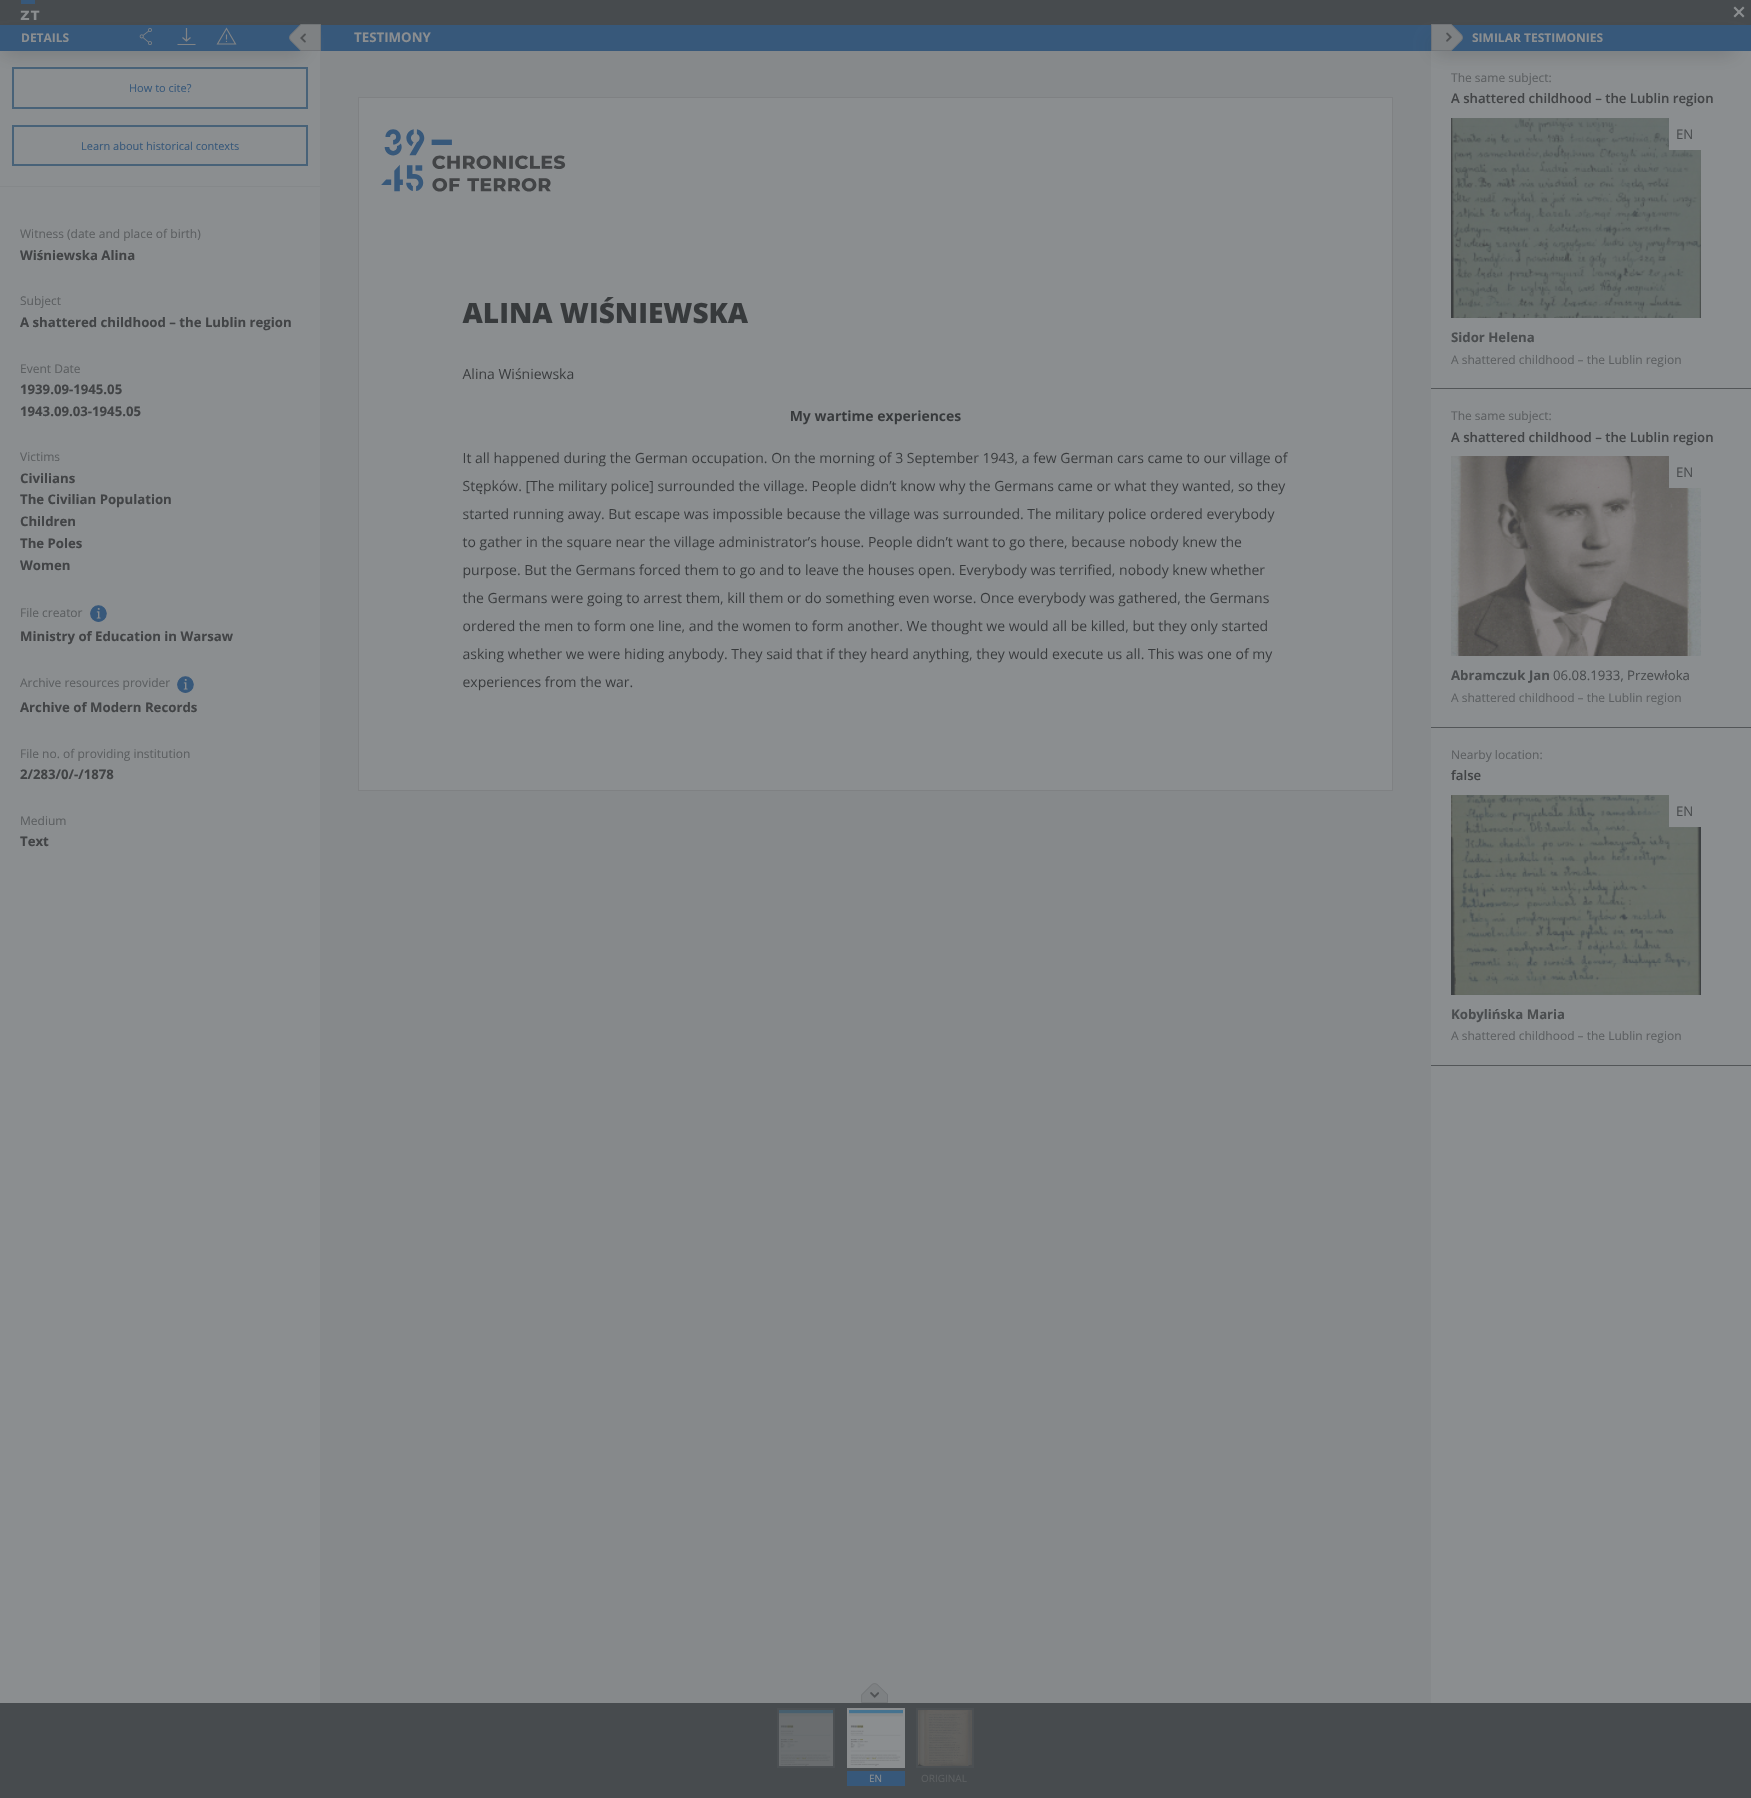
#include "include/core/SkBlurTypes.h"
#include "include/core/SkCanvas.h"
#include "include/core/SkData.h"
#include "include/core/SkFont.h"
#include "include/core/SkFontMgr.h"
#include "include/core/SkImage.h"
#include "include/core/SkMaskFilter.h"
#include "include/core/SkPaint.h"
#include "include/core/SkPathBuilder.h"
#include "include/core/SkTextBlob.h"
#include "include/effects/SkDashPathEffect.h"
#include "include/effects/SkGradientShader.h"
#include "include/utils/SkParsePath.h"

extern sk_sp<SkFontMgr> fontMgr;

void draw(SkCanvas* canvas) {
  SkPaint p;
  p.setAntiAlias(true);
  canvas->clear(SkColorSetRGB(71, 75, 78));
  canvas->drawImageRect(SkImages::DeferredFromEncodedData(SkData::MakeFromFileName("images/1.png")), SkRect::MakeLTRB(20, 0, 40, 20), SkSamplingOptions());
  p.setColor(SkColorSetRGB(139, 142, 144));
  canvas->drawPath(SkPathBuilder().moveTo(1733.5f, 16).lineTo(1743, 6.5f).lineTo(1744.5f, 8).lineTo(1735, 17.5f).close().detach(), p);
  canvas->drawPath(SkPathBuilder().moveTo(1735, 6.5f).lineTo(1744.5f, 16).lineTo(1743, 17.5f).lineTo(1733.5f, 8).close().detach(), p);
  canvas->drawRect(SkRect::MakeLTRB(0, 51, 320, 1703), p);
  canvas->drawImageRect(SkImages::DeferredFromEncodedData(SkData::MakeFromFileName("images/5.png")), SkRect::MakeLTRB(320, 25, 1431, 1703), SkSamplingOptions());
  p.setColor(SkColorSetARGB(166, 55, 58, 60));
  p.setMaskFilter(SkMaskFilter::MakeBlur(kNormal_SkBlurStyle, 10));
  canvas->drawRect(SkRect::MakeLTRB(3, 44, 303, 50), p);
  p.setMaskFilter(nullptr);
  p.setColor(SkColorSetRGB(55, 88, 122));
  canvas->drawRect(SkRect::MakeLTRB(0, 25, 320, 51), p);
  canvas->drawImageRect(SkImages::DeferredFromEncodedData(SkData::MakeFromFileName("images/2.png")), SkRect::MakeLTRB(139, 28, 152, 45), SkSamplingOptions());
  p.setStyle(SkPaint::kStroke_Style);
  p.setStrokeWidth(1.2f);
  p.setColor(SkColorSetRGB(129, 131, 133));
  canvas->drawPath(SkPathBuilder().moveTo(177.5f, 44.5f).lineTo(195.5f, 44.5f).moveTo(186.5f, 28).lineTo(186.5f, 41).moveTo(186.5f, 41).lineTo(182.5f, 37.5f).lineTo(186.5f, 41).lineTo(190.5f, 37.5f).detach(), p);
  p.setStrokeWidth(1.1f);
  canvas->drawPath(SkPathBuilder().moveTo(226.5f, 44).lineTo(217.5f, 44).lineTo(226.5f, 28.5f).lineTo(235.5f, 44).close().moveTo(226.5f, 34.5f).lineTo(226.5f, 39.5f).detach(), p);
  p.setStyle(SkPaint::kFill_Style);
  canvas->drawCircle(226.5f, 41.4f, 0.6f, p);
  canvas->drawImageRect(SkImages::DeferredFromEncodedData(SkData::MakeFromFileName("images/3.png")), SkRect::MakeLTRB(289, 24, 321, 51), SkSamplingOptions());
  p.setStyle(SkPaint::kStroke_Style);
  p.setStrokeWidth(2);
  p.setColor(SkColorSetRGB(72, 98, 120));
  canvas->drawRect(SkRect::MakeLTRB(13, 68, 307, 108), p);
  canvas->drawRect(SkRect::MakeLTRB(13, 126, 307, 165), p);
  p.setStyle(SkPaint::kFill_Style);
  p.setColor(SkColorSetRGB(133, 136, 138));
  canvas->drawRect(SkRect::MakeLTRB(0, 186, 320, 187), p);
  canvas->drawImageRect(SkImages::DeferredFromEncodedData(SkData::MakeFromFileName("images/4.png")), SkRect::MakeLTRB(90, 605, 107, 622), SkSamplingOptions());
  canvas->drawImageRect(SkImages::DeferredFromEncodedData(SkData::MakeFromFileName("images/4.png")), SkRect::MakeLTRB(177, 676, 194, 693), SkSamplingOptions());
  p.setColor(SkColorSetRGB(139, 142, 144));
  canvas->drawRect(SkRect::MakeLTRB(1431, 51, 1751, 1703), p);
  p.setColor(SkColorSetARGB(166, 55, 58, 60));
  p.setMaskFilter(SkMaskFilter::MakeBlur(kNormal_SkBlurStyle, 10));
  canvas->drawRect(SkRect::MakeLTRB(1434, 44, 1734, 50), p);
  p.setMaskFilter(nullptr);
  p.setColor(SkColorSetRGB(55, 88, 122));
  canvas->drawRect(SkRect::MakeLTRB(1431, 25, 1751, 51), p);
  canvas->drawImageRect(SkImages::DeferredFromEncodedData(SkData::MakeFromFileName("images/6.png")), SkRect::MakeLTRB(1431, 24, 1463, 51), SkSamplingOptions());
  p.setColor(SkColorSetRGB(83, 86, 88));
  canvas->drawRect(SkRect::MakeLTRB(1431, 388, 1751, 389), p);
  canvas->drawImageRect(SkImages::DeferredFromEncodedData(SkData::MakeFromFileName("images/7.png")), SkRect::MakeLTRB(1451, 118, 1701, 318), SkSamplingOptions());
  p.setColor(SkColorSetRGB(139, 142, 144));
  canvas->drawRect(SkRect::MakeLTRB(1669, 118, 1701, 150), p);
  p.setColor(SkColorSetRGB(83, 86, 88));
  canvas->drawRect(SkRect::MakeLTRB(1431, 727, 1751, 728), p);
  canvas->drawImageRect(SkImages::DeferredFromEncodedData(SkData::MakeFromFileName("images/8.png")), SkRect::MakeLTRB(1451, 456, 1701, 656), SkSamplingOptions());
  p.setColor(SkColorSetRGB(139, 142, 144));
  canvas->drawRect(SkRect::MakeLTRB(1669, 456, 1701, 488), p);
  p.setColor(SkColorSetRGB(83, 86, 88));
  canvas->drawRect(SkRect::MakeLTRB(1431, 1065, 1751, 1066), p);
  canvas->drawImageRect(SkImages::DeferredFromEncodedData(SkData::MakeFromFileName("images/9.png")), SkRect::MakeLTRB(1451, 795, 1701, 995), SkSamplingOptions());
  p.setColor(SkColorSetRGB(139, 142, 144));
  canvas->drawRect(SkRect::MakeLTRB(1669, 795, 1701, 827), p);
  canvas->drawImageRect(SkImages::DeferredFromEncodedData(SkData::MakeFromFileName("images/10.png")), SkRect::MakeLTRB(861, 1683, 888, 1703), SkSamplingOptions());
  p.setStyle(SkPaint::kStroke_Style);
  p.setColor(SkColorSetRGB(76, 80, 83));
  canvas->drawRect(SkRect::MakeLTRB(778, 1709, 834, 1767), p);
  canvas->drawImageRect(SkImages::DeferredFromEncodedData(SkData::MakeFromFileName("images/11.png")), SkRect::MakeLTRB(779, 1710, 833, 1766), SkSamplingOptions());
  p.setColor(SkColorSetRGB(139, 142, 144));
  canvas->drawRect(SkRect::MakeLTRB(848, 1709, 904, 1767), p);
  canvas->drawImageRect(SkImages::DeferredFromEncodedData(SkData::MakeFromFileName("images/12.png")), SkRect::MakeLTRB(849, 1710, 903, 1766), SkSamplingOptions());
  p.setStyle(SkPaint::kFill_Style);
  p.setColor(SkColorSetRGB(55, 88, 122));
  canvas->drawRect(SkRect::MakeLTRB(847, 1771, 905, 1786), p);
  p.setStyle(SkPaint::kStroke_Style);
  p.setColor(SkColorSetRGB(76, 80, 83));
  canvas->drawRect(SkRect::MakeLTRB(917, 1709, 973, 1767), p);
  canvas->drawImageRect(SkImages::DeferredFromEncodedData(SkData::MakeFromFileName("images/13.png")), SkRect::MakeLTRB(918, 1710, 972, 1766), SkSamplingOptions());
  SkFont font1(fontMgr->matchFamilyStyle("Open Sans", SkFontStyle::Bold()), 12);
  font1.setSubpixel(true);
  p.setStyle(SkPaint::kFill_Style);
  p.setColor(SkColorSetRGB(139, 142, 144));
  canvas->drawString("DETAILS", 21, 42, font1, p);
  SkFont font2(fontMgr->matchFamilyStyle("Open Sans", SkFontStyle::Normal()), 11);
  font2.setSubpixel(true);
  p.setColor(SkColorSetRGB(55, 88, 122));
  canvas->drawString("How to cite?", 129, 92, font2, p);
  canvas->drawString("Learn about historical contexts", 81, 150, font2, p);
  SkFont font3(fontMgr->matchFamilyStyle("Open Sans", SkFontStyle::Normal()), 12);
  font3.setSubpixel(true);
  p.setColor(SkColorSetRGB(92, 95, 97));
  canvas->drawString("Witness (date and place of birth)", 20, 238, font3, p);
  SkFont font4(fontMgr->matchFamilyStyle("Open Sans", SkFontStyle::Bold()), 13.2f);
  font4.setSubpixel(true);
  p.setColor(SkColorSetRGB(66, 68, 70));
  canvas->drawString("Wiśniewska Alina", 20, 260, font4, p);
  p.setColor(SkColorSetRGB(92, 95, 97));
  canvas->drawString("Subject", 20, 305, font3, p);
  p.setColor(SkColorSetRGB(66, 68, 70));
  canvas->drawString("A shattered childhood – the Lublin region", 20, 327, font4, p);
  p.setColor(SkColorSetRGB(92, 95, 97));
  canvas->drawString("Event Date", 20, 373, font3, p);
  p.setColor(SkColorSetRGB(66, 68, 70));
  canvas->drawString("1939.09-1945.05", 20, 394, font4, p);
  canvas->drawString("1943.09.03-1945.05", 20, 416, font4, p);
  p.setColor(SkColorSetRGB(92, 95, 97));
  canvas->drawString("Victims", 20, 461, font3, p);
  p.setColor(SkColorSetRGB(66, 68, 70));
  canvas->drawString("Civilians", 20, 483, font4, p);
  canvas->drawString("The Civilian Population", 20, 504, font4, p);
  canvas->drawString("Children", 20, 526, font4, p);
  canvas->drawString("The Poles", 20, 548, font4, p);
  canvas->drawString("Women", 20, 570, font4, p);
  p.setColor(SkColorSetRGB(92, 95, 97));
  canvas->drawString("File creator", 20, 617, font3, p);
  p.setColor(SkColorSetRGB(66, 68, 70));
  canvas->drawString("Ministry of Education in Warsaw", 20, 641, font4, p);
  p.setColor(SkColorSetRGB(92, 95, 97));
  canvas->drawString("Archive resources provider", 20, 687, font3, p);
  p.setColor(SkColorSetRGB(66, 68, 70));
  canvas->drawString("Archive of Modern Records", 20, 712, font4, p);
  p.setColor(SkColorSetRGB(92, 95, 97));
  canvas->drawString("File no. of providing institution", 20, 758, font3, p);
  p.setColor(SkColorSetRGB(66, 68, 70));
  canvas->drawString("2/283/0/-/1878", 20, 779, font4, p);
  p.setColor(SkColorSetRGB(92, 95, 97));
  canvas->drawString("Medium", 20, 825, font3, p);
  p.setColor(SkColorSetRGB(66, 68, 70));
  canvas->drawString("Text", 20, 846, font4, p);
  p.setColor(SkColorSetRGB(139, 142, 144));
  canvas->drawString("SIMILAR TESTIMONIES", 1472, 42, font1, p);
  p.setColor(SkColorSetRGB(92, 95, 97));
  canvas->drawString("The same subject:", 1451, 82, font3, p);
  SkFont font5(fontMgr->matchFamilyStyle("Open Sans", SkFontStyle(600, SkFontStyle::kNormal_Width, SkFontStyle::kUpright_Slant)), 13.2f);
  font5.setSubpixel(true);
  p.setColor(SkColorSetRGB(66, 68, 70));
  canvas->drawString("A shattered childhood – the Lublin region", 1451, 103, font5, p);
  SkFont font6(fontMgr->matchFamilyStyle("Open Sans", SkFontStyle::Normal()), 13.2f);
  font6.setSubpixel(true);
  p.setColor(SkColorSetRGB(74, 77, 79));
  canvas->drawString("EN", 1676, 139, font6, p);
  canvas->drawString("Sidor Helena", 1451, 342, font4, p);
  p.setColor(SkColorSetRGB(92, 95, 97));
  canvas->drawString("A shattered childhood – the Lublin region", 1451, 364, font3, p);
  canvas->drawString("The same subject:", 1451, 420, font3, p);
  p.setColor(SkColorSetRGB(66, 68, 70));
  canvas->drawString("A shattered childhood – the Lublin region", 1451, 442, font5, p);
  p.setColor(SkColorSetRGB(74, 77, 79));
  canvas->drawString("EN", 1676, 477, font6, p);
  canvas->drawString("Abramczuk Jan", 1451, 680, font4, p);
  canvas->drawString("06.08.1933, Przewłoka", 1553, 680, font6, p);
  p.setColor(SkColorSetRGB(92, 95, 97));
  canvas->drawString("A shattered childhood – the Lublin region", 1451, 702, font3, p);
  canvas->drawString("Nearby location:", 1451, 759, font3, p);
  p.setColor(SkColorSetRGB(66, 68, 70));
  canvas->drawString("false", 1451, 780, font5, p);
  p.setColor(SkColorSetRGB(74, 77, 79));
  canvas->drawString("EN", 1676, 816, font6, p);
  canvas->drawString("Kobylińska Maria", 1451, 1019, font4, p);
  p.setColor(SkColorSetRGB(92, 95, 97));
  canvas->drawString("A shattered childhood – the Lublin region", 1451, 1040, font3, p);
  SkFont font7(fontMgr->matchFamilyStyle("Open Sans", SkFontStyle::Normal()), 10);
  font7.setSubpixel(true);
  p.setColor(SkColorSetRGB(139, 142, 144));
  canvas->drawString("EN", 869, 1782, font7, p);
  p.setColor(SkColorSetRGB(92, 95, 97));
  canvas->drawString("ORIGINAL", 921, 1782, font7, p);
}
